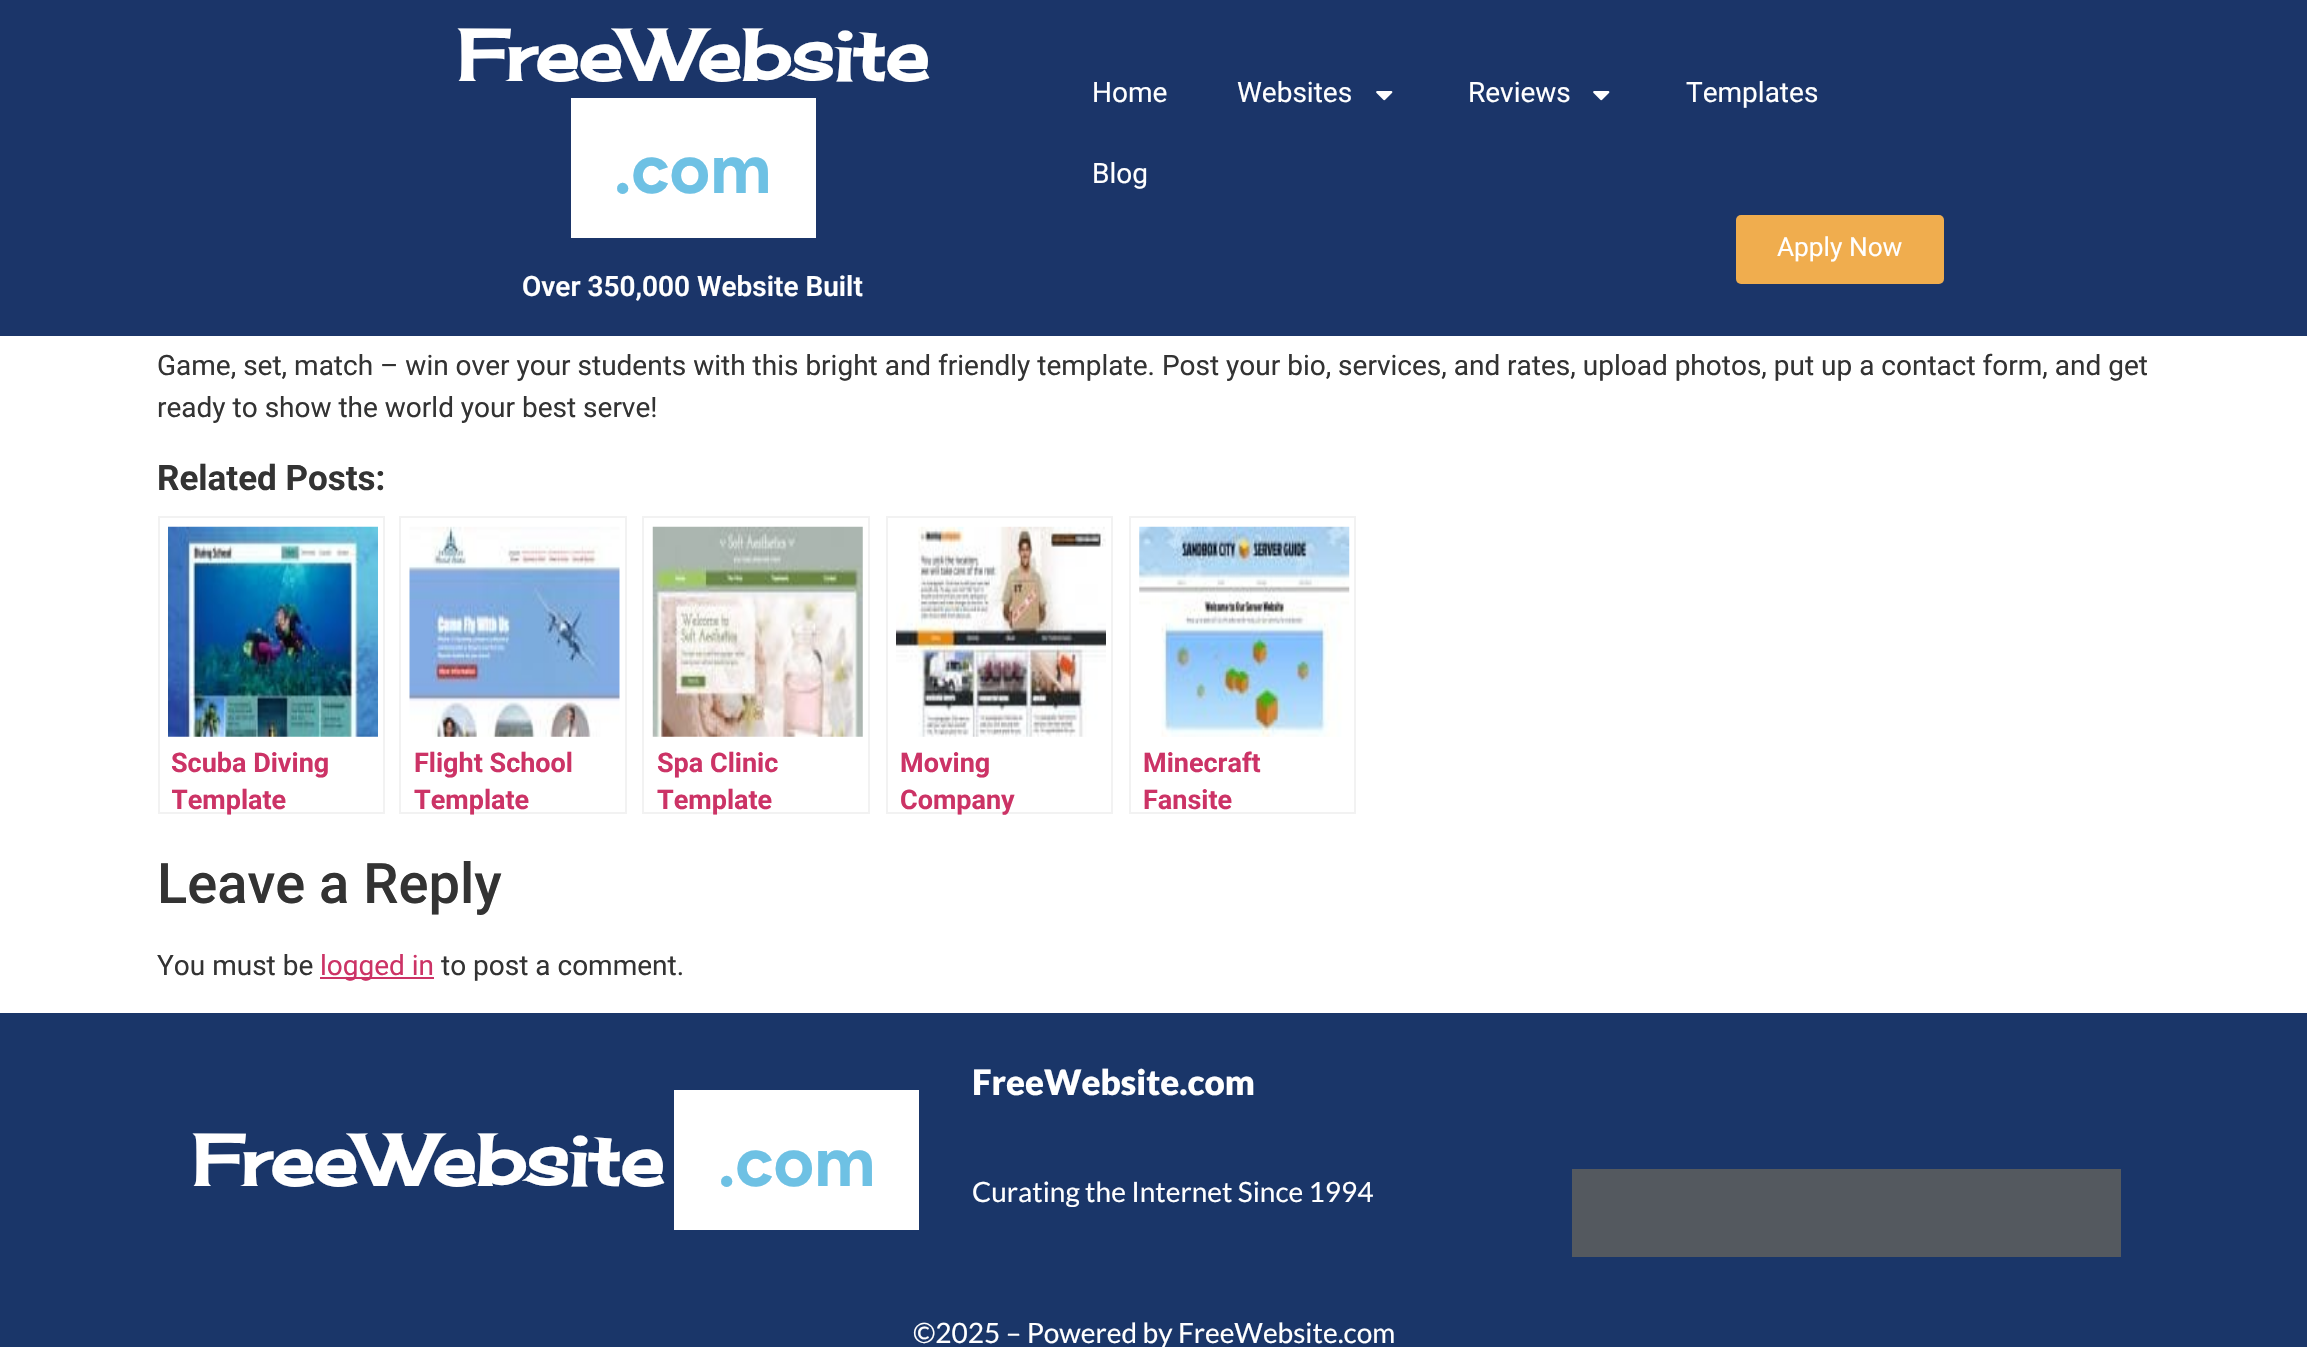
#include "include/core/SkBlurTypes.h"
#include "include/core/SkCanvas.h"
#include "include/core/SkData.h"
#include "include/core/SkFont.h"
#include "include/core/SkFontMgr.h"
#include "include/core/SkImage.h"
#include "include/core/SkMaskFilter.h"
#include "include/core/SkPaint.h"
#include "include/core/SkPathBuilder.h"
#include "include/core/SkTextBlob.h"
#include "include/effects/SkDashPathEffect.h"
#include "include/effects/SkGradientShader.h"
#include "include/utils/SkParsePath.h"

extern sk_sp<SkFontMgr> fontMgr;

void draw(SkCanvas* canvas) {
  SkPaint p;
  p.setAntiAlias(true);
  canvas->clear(SK_ColorWHITE);
  p.setColor(SkColorSetRGB(27, 53, 105));
  canvas->drawRect(SkRect::MakeLTRB(0, 0, 2307, 336), p);
  p.setColor(SK_ColorWHITE);
  canvas->drawRect(SkRect::MakeLTRB(571, 98, 816, 238), p);
  canvas->drawImageRect(SkImages::DeferredFromEncodedData(SkData::MakeFromFileName("images/1.png")), SkRect::MakeLTRB(1376, 91, 1393, 101), SkSamplingOptions());
  canvas->drawImageRect(SkImages::DeferredFromEncodedData(SkData::MakeFromFileName("images/1.png")), SkRect::MakeLTRB(1593, 91, 1610, 101), SkSamplingOptions());
  p.setColor(SkColorSetRGB(240, 173, 78));
  canvas->drawRoundRect(SkRect::MakeLTRB(1736, 215, 1944, 284), 5, 5, p);
  p.setStyle(SkPaint::kStroke_Style);
  p.setStrokeWidth(2);
  p.setColor(SkColorSetRGB(242, 242, 242));
  canvas->drawRect(SkRect::MakeLTRB(159, 517, 384, 813), p);
  canvas->drawImageRect(SkImages::DeferredFromEncodedData(SkData::MakeFromFileName("images/2.png")), SkRect::MakeLTRB(168, 526, 378, 737), SkSamplingOptions());
  canvas->drawRect(SkRect::MakeLTRB(400, 517, 626, 813), p);
  canvas->drawImageRect(SkImages::DeferredFromEncodedData(SkData::MakeFromFileName("images/3.png")), SkRect::MakeLTRB(409, 526, 620, 737), SkSamplingOptions());
  canvas->drawRect(SkRect::MakeLTRB(643, 517, 869, 813), p);
  canvas->drawImageRect(SkImages::DeferredFromEncodedData(SkData::MakeFromFileName("images/4.png")), SkRect::MakeLTRB(652, 526, 863, 737), SkSamplingOptions());
  canvas->drawRect(SkRect::MakeLTRB(887, 517, 1112, 813), p);
  canvas->drawImageRect(SkImages::DeferredFromEncodedData(SkData::MakeFromFileName("images/5.png")), SkRect::MakeLTRB(896, 526, 1106, 737), SkSamplingOptions());
  canvas->drawRect(SkRect::MakeLTRB(1130, 517, 1355, 813), p);
  canvas->drawImageRect(SkImages::DeferredFromEncodedData(SkData::MakeFromFileName("images/6.png")), SkRect::MakeLTRB(1139, 526, 1350, 737), SkSamplingOptions());
  p.setStyle(SkPaint::kFill_Style);
  p.setColor(SkColorSetRGB(204, 51, 102));
  canvas->drawRect(SkRect::MakeLTRB(320, 977, 434, 979), p);
  p.setColor(SkColorSetRGB(26, 54, 105));
  canvas->drawRect(SkRect::MakeLTRB(0, 1013, 2307, 1347), p);
  p.setColor(SK_ColorWHITE);
  canvas->drawRect(SkRect::MakeLTRB(674, 1090, 919, 1230), p);
  p.setColor(SkColorSetRGB(84, 89, 95));
  canvas->drawRect(SkRect::MakeLTRB(1572, 1169, 2121, 1257), p);
  SkFont font1(fontMgr->matchFamilyStyle("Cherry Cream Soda", SkFontStyle::Bold()), 70);
  font1.setSubpixel(true);
  p.setColor(SK_ColorWHITE);
  canvas->drawString("FreeWebsite", 457, 81, font1, p);
  SkFont font2(fontMgr->matchFamilyStyle("Figtree", SkFontStyle::Bold()), 70);
  font2.setSubpixel(true);
  p.setColor(SkColorSetRGB(110, 193, 228));
  canvas->drawString(".com", 614, 193, font2, p);
  SkFont font3(fontMgr->matchFamilyStyle("Roboto", SkFontStyle(600, SkFontStyle::kNormal_Width, SkFontStyle::kUpright_Slant)), 28);
  font3.setSubpixel(true);
  p.setColor(SK_ColorWHITE);
  canvas->drawString("Over 350,000 Website Built", 522, 296, font3, p);
  SkFont font4(fontMgr->matchFamilyStyle("Roboto", SkFontStyle::Normal()), 28);
  font4.setSubpixel(true);
  canvas->drawString("Home", 1092, 102, font4, p);
  canvas->drawString("Websites", 1237, 102, font4, p);
  canvas->drawString("Reviews", 1468, 102, font4, p);
  canvas->drawString("Templates", 1686, 102, font4, p);
  canvas->drawString("Blog", 1092, 183, font4, p);
  SkFont font5(fontMgr->matchFamilyStyle("Roboto", SkFontStyle::Normal()), 26.25f);
  font5.setSubpixel(true);
  canvas->drawString("Apply Now", 1777, 256, font5, p);
  p.setColor(SkColorSetRGB(51, 51, 51));
  canvas->drawString("Game, set, match – win over your students with this bright and friendly template. Post your bio, services, and rates, upload photos, put up a contact form, and get", 157, 375, font4, p);
  canvas->drawString("ready to show the world your best serve!", 157, 417, font4, p);
  SkFont font6(fontMgr->matchFamilyStyle("Roboto", SkFontStyle::Bold()), 35);
  font6.setSubpixel(true);
  canvas->drawString("Related Posts:", 157, 490, font6, p);
  SkFont font7(fontMgr->matchFamilyStyle("Roboto", SkFontStyle::Bold()), 27);
  font7.setSubpixel(true);
  p.setColor(SkColorSetRGB(204, 51, 102));
  canvas->drawString("Scuba Diving", 171, 772, font7, p);
  canvas->save();
  canvas->clipRect(SkRect::MakeLTRB(172, 746, 382, 821));
  canvas->drawString("Template", 171, 809, font7, p);
  canvas->restore();
  canvas->drawString("Flight School", 414, 772, font7, p);
  canvas->drawString("Template", 414, 809, font7, p);
  canvas->drawString("Spa Clinic", 657, 772, font7, p);
  canvas->drawString("Template", 657, 809, font7, p);
  canvas->drawString("Moving", 900, 772, font7, p);
  canvas->drawString("Company", 900, 809, font7, p);
  canvas->drawString("Minecraft", 1143, 772, font7, p);
  canvas->drawString("Fansite", 1143, 809, font7, p);
  SkFont font8(fontMgr->matchFamilyStyle("Roboto", SkFontStyle(500, SkFontStyle::kNormal_Width, SkFontStyle::kUpright_Slant)), 56);
  font8.setSubpixel(true);
  p.setColor(SkColorSetRGB(51, 51, 51));
  canvas->drawString("Leave a Reply", 157, 903, font8, p);
  canvas->drawString("You must be", 157, 975, font4, p);
  p.setColor(SkColorSetRGB(204, 51, 102));
  canvas->drawString("logged in", 320, 975, font4, p);
  p.setColor(SkColorSetRGB(51, 51, 51));
  canvas->drawString("to post a comment.", 441, 975, font4, p);
  p.setColor(SK_ColorWHITE);
  canvas->drawString("FreeWebsite", 192, 1186, font1, p);
  p.setColor(SkColorSetRGB(110, 193, 228));
  canvas->drawString(".com", 718, 1186, font2, p);
  SkFont font9(fontMgr->matchFamilyStyle("Lato", SkFontStyle(900, SkFontStyle::kNormal_Width, SkFontStyle::kUpright_Slant)), 35);
  font9.setSubpixel(true);
  p.setColor(SK_ColorWHITE);
  canvas->drawString("FreeWebsite.com", 972, 1095, font9, p);
  SkFont font10(fontMgr->matchFamilyStyle("Lato", SkFontStyle::Normal()), 28);
  font10.setSubpixel(true);
  canvas->drawString("Curating the Internet Since 1994", 972, 1202, font10, p);
  canvas->drawString("©2025 – Powered by FreeWebsite.com", 913, 1343, font10, p);
}
